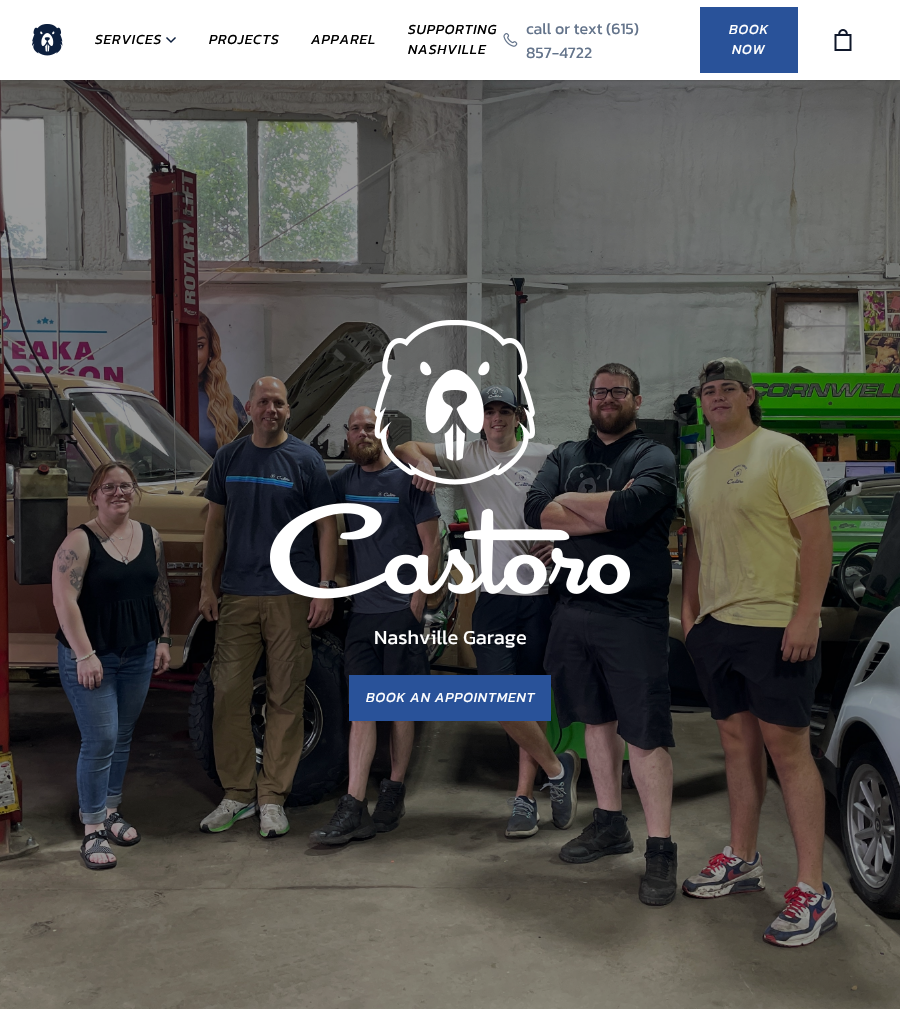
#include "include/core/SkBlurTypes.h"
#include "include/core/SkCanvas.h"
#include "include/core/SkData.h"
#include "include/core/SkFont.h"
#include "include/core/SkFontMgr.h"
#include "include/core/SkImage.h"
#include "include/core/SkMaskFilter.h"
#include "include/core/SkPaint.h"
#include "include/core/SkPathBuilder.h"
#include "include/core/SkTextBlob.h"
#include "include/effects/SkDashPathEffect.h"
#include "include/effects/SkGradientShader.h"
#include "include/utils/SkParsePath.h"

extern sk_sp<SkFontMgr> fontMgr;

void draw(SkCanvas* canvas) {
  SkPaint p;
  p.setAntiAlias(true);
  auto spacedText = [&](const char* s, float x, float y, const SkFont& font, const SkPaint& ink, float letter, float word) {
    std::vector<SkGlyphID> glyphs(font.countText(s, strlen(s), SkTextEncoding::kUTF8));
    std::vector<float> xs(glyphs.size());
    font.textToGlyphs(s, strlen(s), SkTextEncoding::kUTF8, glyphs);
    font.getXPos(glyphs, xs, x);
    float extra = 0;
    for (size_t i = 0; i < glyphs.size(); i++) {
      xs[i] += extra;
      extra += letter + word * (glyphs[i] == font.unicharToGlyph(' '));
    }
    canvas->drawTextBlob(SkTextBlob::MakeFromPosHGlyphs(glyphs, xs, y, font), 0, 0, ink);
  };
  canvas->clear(SK_ColorWHITE);
  canvas->drawImageRect(SkImages::DeferredFromEncodedData(SkData::MakeFromFileName("images/4.png")), SkRect::MakeLTRB(0, 80, 900, 1009), SkSamplingOptions());
  p.setColor(SkColorSetARGB(26, 0, 0, 0));
  p.setMaskFilter(SkMaskFilter::MakeBlur(kNormal_SkBlurStyle, 1));
  canvas->drawRect(SkRect::MakeLTRB(1, 2, 899, 80), p);
  p.setMaskFilter(nullptr);
  p.setMaskFilter(SkMaskFilter::MakeBlur(kNormal_SkBlurStyle, 1.5f));
  canvas->drawRect(SkRect::MakeLTRB(0, 1, 900, 81), p);
  p.setMaskFilter(nullptr);
  p.setColor(SK_ColorWHITE);
  canvas->drawRect(SkRect::MakeLTRB(0, 0, 900, 80), p);
  canvas->drawImageRect(SkImages::DeferredFromEncodedData(SkData::MakeFromFileName("images/1.png")), SkRect::MakeLTRB(32, 24, 63, 56), SkSamplingOptions());
  p.setStyle(SkPaint::kStroke_Style);
  p.setStrokeWidth(1.5f);
  p.setStrokeCap(SkPaint::kSquare_Cap);
  p.setColor(SkColorSetRGB(13, 31, 61));
  canvas->drawPath(SkPathBuilder().moveTo(175, 38).lineTo(171, 42).lineTo(167, 38).detach(), p);
  canvas->drawImageRect(SkImages::DeferredFromEncodedData(SkData::MakeFromFileName("images/2.png")), SkRect::MakeLTRB(503, 33, 518, 47), SkSamplingOptions());
  p.setStyle(SkPaint::kFill_Style);
  p.setColor(SkColorSetRGB(41, 82, 153));
  canvas->drawRect(SkRect::MakeLTRB(700, 7, 798, 73), p);
  canvas->drawImageRect(SkImages::DeferredFromEncodedData(SkData::MakeFromFileName("images/3.png")), SkRect::MakeLTRB(834, 29, 852, 51), SkSamplingOptions());
  canvas->drawImageRect(SkImages::DeferredFromEncodedData(SkData::MakeFromFileName("images/5.png")), SkRect::MakeLTRB(270, 320, 630, 599), SkSamplingOptions());
  canvas->drawRect(SkRect::MakeLTRB(349, 675, 551, 721), p);
  SkFont font1(fontMgr->matchFamilyStyle("Kanit", SkFontStyle::Italic()), 14);
  font1.setSubpixel(true);
  p.setColor(SK_ColorBLACK);
  spacedText("SERVICES", 95, 44, font1, p, 0.75f, 0);
  spacedText("PROJECTS", 209, 44, font1, p, 0.75f, 0);
  spacedText("APPAREL", 311, 44, font1, p, 0.75f, 0);
  spacedText("SUPPORTING", 408, 34, font1, p, 0.75f, 0);
  spacedText("NASHVILLE", 408, 54, font1, p, 0.75f, 0);
  SkFont font2(fontMgr->matchFamilyStyle("Kanit", SkFontStyle::Normal()), 16);
  font2.setSubpixel(true);
  p.setColor(SkColorSetRGB(100, 116, 139));
  canvas->drawString("call or text (615)", 526, 34, font2, p);
  canvas->drawString("857-4722", 526, 58, font2, p);
  p.setColor(SK_ColorWHITE);
  spacedText("BOOK", 729, 34, font1, p, 0.75f, 0);
  spacedText("NOW", 732, 54, font1, p, 0.75f, 0);
  SkFont font3(fontMgr->matchFamilyStyle("Kanit", SkFontStyle::Normal()), 20);
  font3.setSubpixel(true);
  canvas->drawString("Nashville Garage", 374, 644, font3, p);
  spacedText("BOOK AN APPOINTMENT", 366, 702, font1, p, 0.75f, 0);
}
